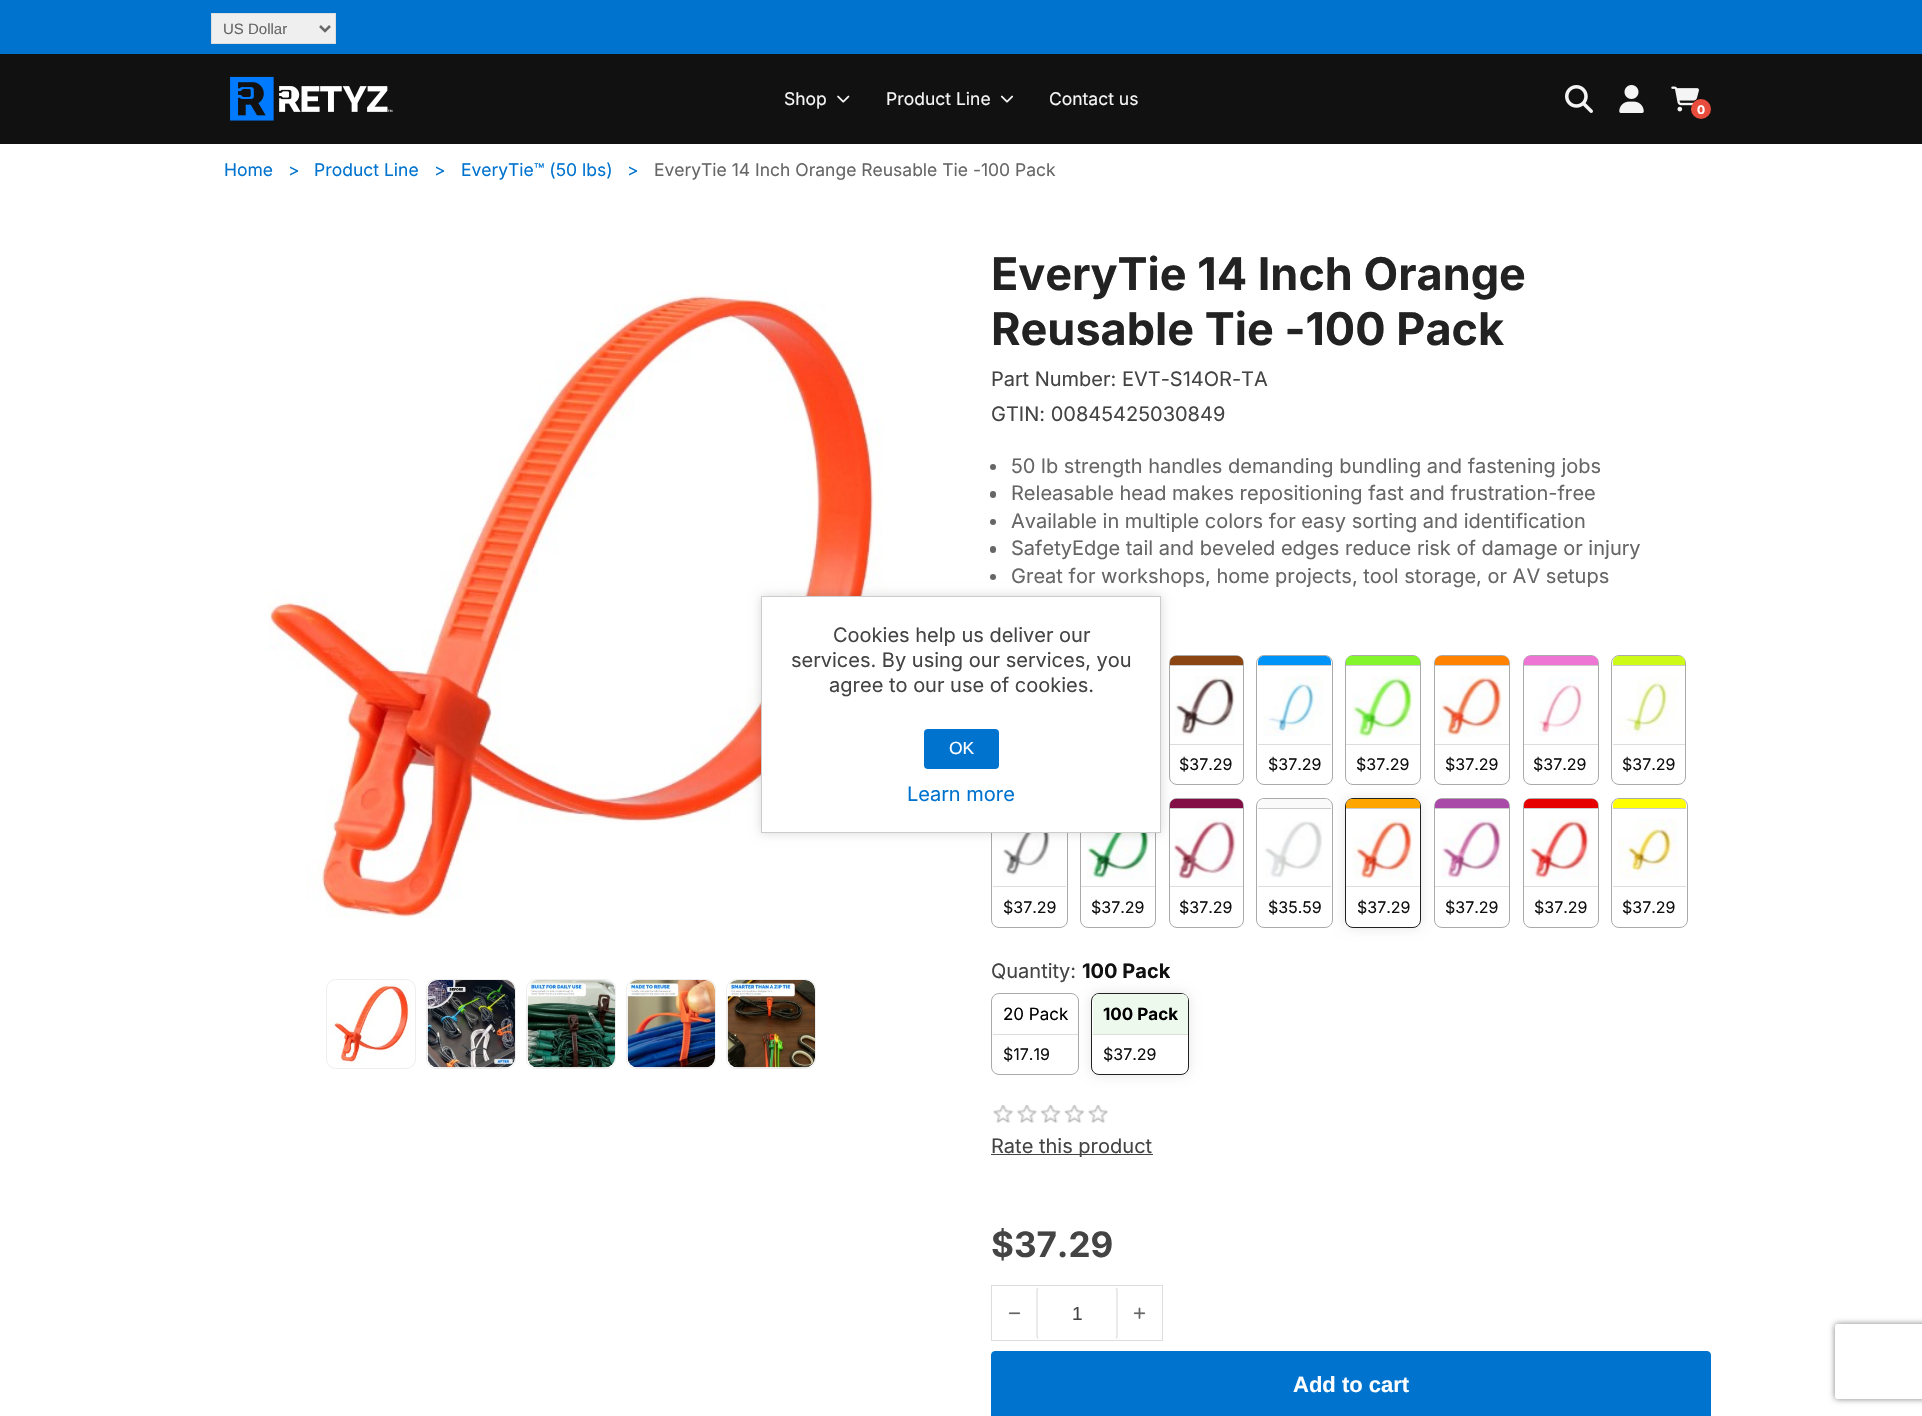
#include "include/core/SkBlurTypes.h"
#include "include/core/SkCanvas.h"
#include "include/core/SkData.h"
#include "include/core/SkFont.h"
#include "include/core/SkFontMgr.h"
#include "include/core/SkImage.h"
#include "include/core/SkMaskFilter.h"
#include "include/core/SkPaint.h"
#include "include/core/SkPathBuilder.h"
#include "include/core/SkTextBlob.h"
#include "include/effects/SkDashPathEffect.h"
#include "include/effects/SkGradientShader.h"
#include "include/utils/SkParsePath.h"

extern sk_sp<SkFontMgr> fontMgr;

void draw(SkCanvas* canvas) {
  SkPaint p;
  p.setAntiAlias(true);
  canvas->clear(SK_ColorWHITE);
  p.setColor(SkColorSetRGB(0, 115, 207));
  canvas->drawRect(SkRect::MakeLTRB(0, 0, 1922, 54), p);
  p.setColor(SkColorSetRGB(239, 239, 239));
  canvas->drawRect(SkRect::MakeLTRB(211.5f, 13.5f, 335.5f, 43.5f), p);
  p.setStyle(SkPaint::kStroke_Style);
  p.setStrokeWidth(1);
  p.setColor(SkColorSetRGB(221, 221, 221));
  canvas->drawRect(SkRect::MakeLTRB(211.5f, 13.5f, 335.5f, 43.5f), p);
  p.setStrokeWidth(2.5f);
  p.setColor(SkColorSetRGB(102, 102, 102));
  canvas->drawPath(SkPathBuilder().moveTo(320, 26).lineTo(325, 31).lineTo(330, 26).detach(), p);
  p.setStyle(SkPaint::kFill_Style);
  p.setColor(SkColorSetRGB(17, 17, 17));
  canvas->drawRect(SkRect::MakeLTRB(0, 54, 1922, 144), p);
  canvas->drawImageRect(SkImages::DeferredFromEncodedData(SkData::MakeFromFileName("images/1.png")), SkRect::MakeLTRB(230, 76, 393, 121), SkSamplingOptions());
  canvas->drawImageRect(SkImages::DeferredFromEncodedData(SkData::MakeFromFileName("images/2.png")), SkRect::MakeLTRB(837, 95, 850, 103), SkSamplingOptions());
  canvas->drawImageRect(SkImages::DeferredFromEncodedData(SkData::MakeFromFileName("images/3.png")), SkRect::MakeLTRB(1000, 95, 1014, 103), SkSamplingOptions());
  canvas->drawImageRect(SkImages::DeferredFromEncodedData(SkData::MakeFromFileName("images/4.png")), SkRect::MakeLTRB(1565, 85, 1593, 113), SkSamplingOptions());
  canvas->drawImageRect(SkImages::DeferredFromEncodedData(SkData::MakeFromFileName("images/5.png")), SkRect::MakeLTRB(1619, 85, 1644, 113), SkSamplingOptions());
  canvas->drawImageRect(SkImages::DeferredFromEncodedData(SkData::MakeFromFileName("images/6.png")), SkRect::MakeLTRB(1671, 86, 1699, 112), SkSamplingOptions());
  p.setColor(SkColorSetRGB(231, 76, 60));
  canvas->drawCircle(1701, 109, 10, p);
  canvas->drawImageRect(SkImages::DeferredFromEncodedData(SkData::MakeFromFileName("images/7.png")), SkRect::MakeLTRB(268, 290, 883, 918), SkSamplingOptions());
  p.setStyle(SkPaint::kStroke_Style);
  p.setStrokeWidth(1);
  p.setColor(SkColorSetRGB(238, 238, 238));
  canvas->drawRoundRect(SkRect::MakeLTRB(326.5f, 979.5f, 415.5f, 1068.5f), 9.5f, 9.5f, p);
  canvas->drawImageRect(SkImages::DeferredFromEncodedData(SkData::MakeFromFileName("images/8.png")), SkRect::MakeLTRB(328, 980, 412, 1064), SkSamplingOptions());
  canvas->drawRoundRect(SkRect::MakeLTRB(426.5f, 979.5f, 515.5f, 1068.5f), 9.5f, 9.5f, p);
  canvas->drawImageRect(SkImages::DeferredFromEncodedData(SkData::MakeFromFileName("images/9.png")), SkRect::MakeLTRB(427, 980, 515, 1068), SkSamplingOptions());
  canvas->drawRoundRect(SkRect::MakeLTRB(526.5f, 979.5f, 615.5f, 1068.5f), 9.5f, 9.5f, p);
  canvas->drawImageRect(SkImages::DeferredFromEncodedData(SkData::MakeFromFileName("images/10.png")), SkRect::MakeLTRB(527, 980, 615, 1068), SkSamplingOptions());
  canvas->drawRoundRect(SkRect::MakeLTRB(626.5f, 979.5f, 715.5f, 1068.5f), 9.5f, 9.5f, p);
  canvas->drawImageRect(SkImages::DeferredFromEncodedData(SkData::MakeFromFileName("images/11.png")), SkRect::MakeLTRB(627, 980, 715, 1068), SkSamplingOptions());
  canvas->drawRoundRect(SkRect::MakeLTRB(726.5f, 979.5f, 815.5f, 1068.5f), 9.5f, 9.5f, p);
  canvas->drawImageRect(SkImages::DeferredFromEncodedData(SkData::MakeFromFileName("images/12.png")), SkRect::MakeLTRB(727, 980, 815, 1068), SkSamplingOptions());
  p.setStyle(SkPaint::kFill_Style);
  p.setColor(SkColorSetRGB(102, 102, 102));
  canvas->drawCircle(993, 467, 3, p);
  canvas->drawRoundRect(SkRect::MakeLTRB(990, 491, 996, 498), 3, 3, p);
  canvas->drawCircle(993, 522, 3, p);
  canvas->drawRoundRect(SkRect::MakeLTRB(990, 546, 996, 553), 3, 3, p);
  canvas->drawCircle(993, 577, 3, p);
  p.setStyle(SkPaint::kStroke_Style);
  p.setColor(SkColorSetRGB(170, 170, 170));
  canvas->drawRoundRect(SkRect::MakeLTRB(1169.5f, 655.5f, 1243.5f, 784.5f), 7.5f, 7.5f, p);
  p.setStyle(SkPaint::kFill_Style);
  p.setColor(SkColorSetRGB(139, 69, 19));
  canvas->drawPath(SkPathBuilder().moveTo(1176, 656).lineTo(1237, 656).cubicTo(1240.5f, 656, 1243, 658.5f, 1243, 662).lineTo(1243, 666).lineTo(1170, 666).lineTo(1170, 662).cubicTo(1170, 658.5f, 1172.5f, 656, 1176, 656).close().detach(), p);
  p.setColor(SkColorSetRGB(204, 204, 204));
  canvas->drawRect(SkRect::MakeLTRB(1170, 665, 1243, 666), p);
  canvas->drawImageRect(SkImages::DeferredFromEncodedData(SkData::MakeFromFileName("images/13.png")), SkRect::MakeLTRB(1175, 676, 1235, 736), SkSamplingOptions());
  p.setColor(SkColorSetRGB(221, 221, 221));
  canvas->drawRect(SkRect::MakeLTRB(1170, 744, 1243, 745), p);
  p.setStyle(SkPaint::kStroke_Style);
  p.setColor(SkColorSetRGB(170, 170, 170));
  canvas->drawRoundRect(SkRect::MakeLTRB(1256.5f, 655.5f, 1332.5f, 784.5f), 7.5f, 7.5f, p);
  p.setStyle(SkPaint::kFill_Style);
  p.setColor(SkColorSetRGB(0, 147, 248));
  canvas->drawPath(SkPathBuilder().moveTo(1264, 656).lineTo(1325, 656).cubicTo(1328.5f, 656, 1331, 658.5f, 1331, 662).lineTo(1331, 666).lineTo(1258, 666).lineTo(1258, 662).cubicTo(1258, 658.5f, 1260.5f, 656, 1264, 656).close().detach(), p);
  p.setColor(SkColorSetRGB(204, 204, 204));
  canvas->drawRect(SkRect::MakeLTRB(1258, 665, 1331, 666), p);
  canvas->drawImageRect(SkImages::DeferredFromEncodedData(SkData::MakeFromFileName("images/14.png")), SkRect::MakeLTRB(1264, 676, 1324, 737), SkSamplingOptions());
  p.setColor(SkColorSetRGB(221, 221, 221));
  canvas->drawRect(SkRect::MakeLTRB(1258, 744, 1331, 745), p);
  p.setStyle(SkPaint::kStroke_Style);
  p.setColor(SkColorSetRGB(170, 170, 170));
  canvas->drawRoundRect(SkRect::MakeLTRB(1345.5f, 655.5f, 1420.5f, 784.5f), 7.5f, 7.5f, p);
  p.setStyle(SkPaint::kFill_Style);
  p.setColor(SkColorSetRGB(131, 245, 44));
  canvas->drawPath(SkPathBuilder().moveTo(1352, 656).lineTo(1414, 656).cubicTo(1417.5f, 656, 1420, 658.5f, 1420, 662).lineTo(1420, 666).lineTo(1346, 666).lineTo(1346, 662).cubicTo(1346, 658.5f, 1348.5f, 656, 1352, 656).close().detach(), p);
  p.setColor(SkColorSetRGB(204, 204, 204));
  canvas->drawRect(SkRect::MakeLTRB(1346, 665, 1420, 666), p);
  canvas->drawImageRect(SkImages::DeferredFromEncodedData(SkData::MakeFromFileName("images/15.png")), SkRect::MakeLTRB(1352, 676, 1413, 738), SkSamplingOptions());
  p.setColor(SkColorSetRGB(221, 221, 221));
  canvas->drawRect(SkRect::MakeLTRB(1346, 744, 1420, 745), p);
  p.setStyle(SkPaint::kStroke_Style);
  p.setColor(SkColorSetRGB(170, 170, 170));
  canvas->drawRoundRect(SkRect::MakeLTRB(1434.5f, 655.5f, 1509.5f, 784.5f), 7.5f, 7.5f, p);
  p.setStyle(SkPaint::kFill_Style);
  p.setColor(SkColorSetRGB(255, 131, 0));
  canvas->drawPath(SkPathBuilder().moveTo(1441, 656).lineTo(1503, 656).cubicTo(1506.5f, 656, 1509, 658.5f, 1509, 662).lineTo(1509, 666).lineTo(1435, 666).lineTo(1435, 662).cubicTo(1435, 658.5f, 1437.5f, 656, 1441, 656).close().detach(), p);
  p.setColor(SkColorSetRGB(204, 204, 204));
  canvas->drawRect(SkRect::MakeLTRB(1435, 665, 1509, 666), p);
  canvas->drawImageRect(SkImages::DeferredFromEncodedData(SkData::MakeFromFileName("images/16.png")), SkRect::MakeLTRB(1439, 676, 1502, 737), SkSamplingOptions());
  p.setColor(SkColorSetRGB(221, 221, 221));
  canvas->drawRect(SkRect::MakeLTRB(1435, 744, 1509, 745), p);
  p.setStyle(SkPaint::kStroke_Style);
  p.setColor(SkColorSetRGB(170, 170, 170));
  canvas->drawRoundRect(SkRect::MakeLTRB(1523.5f, 655.5f, 1598.5f, 784.5f), 7.5f, 7.5f, p);
  p.setStyle(SkPaint::kFill_Style);
  p.setColor(SkColorSetRGB(238, 117, 211));
  canvas->drawPath(SkPathBuilder().moveTo(1530, 656).lineTo(1592, 656).cubicTo(1595.5f, 656, 1598, 658.5f, 1598, 662).lineTo(1598, 666).lineTo(1524, 666).lineTo(1524, 662).cubicTo(1524, 658.5f, 1526.5f, 656, 1530, 656).close().detach(), p);
  p.setColor(SkColorSetRGB(204, 204, 204));
  canvas->drawRect(SkRect::MakeLTRB(1524, 665, 1598, 666), p);
  canvas->drawImageRect(SkImages::DeferredFromEncodedData(SkData::MakeFromFileName("images/17.png")), SkRect::MakeLTRB(1534, 676, 1584, 736), SkSamplingOptions());
  p.setColor(SkColorSetRGB(221, 221, 221));
  canvas->drawRect(SkRect::MakeLTRB(1524, 744, 1598, 745), p);
  p.setStyle(SkPaint::kStroke_Style);
  p.setColor(SkColorSetRGB(170, 170, 170));
  canvas->drawRoundRect(SkRect::MakeLTRB(1611.5f, 655.5f, 1685.5f, 784.5f), 7.5f, 7.5f, p);
  p.setStyle(SkPaint::kFill_Style);
  p.setColor(SkColorSetRGB(206, 250, 23));
  canvas->drawPath(SkPathBuilder().moveTo(1619, 656).lineTo(1679, 656).cubicTo(1682.5f, 656, 1685, 658.5f, 1685, 662).lineTo(1685, 666).lineTo(1613, 666).lineTo(1613, 662).cubicTo(1613, 658.5f, 1615.5f, 656, 1619, 656).close().detach(), p);
  p.setColor(SkColorSetRGB(204, 204, 204));
  canvas->drawRect(SkRect::MakeLTRB(1613, 665, 1685, 666), p);
  canvas->drawImageRect(SkImages::DeferredFromEncodedData(SkData::MakeFromFileName("images/18.png")), SkRect::MakeLTRB(1617, 676, 1678, 737), SkSamplingOptions());
  p.setColor(SkColorSetRGB(221, 221, 221));
  canvas->drawRect(SkRect::MakeLTRB(1613, 744, 1685, 745), p);
  p.setStyle(SkPaint::kStroke_Style);
  p.setColor(SkColorSetRGB(170, 170, 170));
  canvas->drawRoundRect(SkRect::MakeLTRB(991.5f, 798.5f, 1067.5f, 927.5f), 7.5f, 7.5f, p);
  canvas->drawImageRect(SkImages::DeferredFromEncodedData(SkData::MakeFromFileName("images/19.png")), SkRect::MakeLTRB(1003, 833, 1050, 877), SkSamplingOptions());
  p.setStyle(SkPaint::kFill_Style);
  p.setColor(SkColorSetRGB(221, 221, 221));
  canvas->drawRect(SkRect::MakeLTRB(993, 886, 1066, 887), p);
  p.setStyle(SkPaint::kStroke_Style);
  p.setColor(SkColorSetRGB(170, 170, 170));
  canvas->drawRoundRect(SkRect::MakeLTRB(1080.5f, 798.5f, 1155.5f, 927.5f), 7.5f, 7.5f, p);
  canvas->drawImageRect(SkImages::DeferredFromEncodedData(SkData::MakeFromFileName("images/20.png")), SkRect::MakeLTRB(1086, 833, 1149, 880), SkSamplingOptions());
  p.setStyle(SkPaint::kFill_Style);
  p.setColor(SkColorSetRGB(221, 221, 221));
  canvas->drawRect(SkRect::MakeLTRB(1081, 886, 1155, 887), p);
  p.setStyle(SkPaint::kStroke_Style);
  p.setColor(SkColorSetRGB(170, 170, 170));
  canvas->drawRoundRect(SkRect::MakeLTRB(1169.5f, 798.5f, 1243.5f, 927.5f), 7.5f, 7.5f, p);
  p.setStyle(SkPaint::kFill_Style);
  p.setColor(SkColorSetRGB(131, 14, 69));
  canvas->drawPath(SkPathBuilder().moveTo(1176, 799).lineTo(1237, 799).cubicTo(1240.5f, 799, 1243, 801.5f, 1243, 805).lineTo(1243, 809).lineTo(1170, 809).lineTo(1170, 805).cubicTo(1170, 801.5f, 1172.5f, 799, 1176, 799).close().detach(), p);
  p.setColor(SkColorSetRGB(204, 204, 204));
  canvas->drawRect(SkRect::MakeLTRB(1170, 808, 1243, 809), p);
  canvas->drawImageRect(SkImages::DeferredFromEncodedData(SkData::MakeFromFileName("images/21.png")), SkRect::MakeLTRB(1174, 819, 1236, 880), SkSamplingOptions());
  p.setColor(SkColorSetRGB(221, 221, 221));
  canvas->drawRect(SkRect::MakeLTRB(1170, 886, 1243, 887), p);
  p.setStyle(SkPaint::kStroke_Style);
  p.setColor(SkColorSetRGB(170, 170, 170));
  canvas->drawRoundRect(SkRect::MakeLTRB(1256.5f, 798.5f, 1332.5f, 927.5f), 7.5f, 7.5f, p);
  p.setStyle(SkPaint::kFill_Style);
  p.setColor(SkColorSetARGB(26, 0, 0, 0));
  p.setMaskFilter(SkMaskFilter::MakeBlur(kNormal_SkBlurStyle, 6));
  canvas->drawRoundRect(SkRect::MakeLTRB(1345, 798, 1421, 928), 8, 8, p);
  p.setMaskFilter(nullptr);
  p.setColor(SkColorSetRGB(250, 250, 250));
  canvas->drawPath(SkPathBuilder().moveTo(1264, 799).lineTo(1325, 799).cubicTo(1328.5f, 799, 1331, 801.5f, 1331, 805).lineTo(1331, 809).lineTo(1258, 809).lineTo(1258, 805).cubicTo(1258, 801.5f, 1260.5f, 799, 1264, 799).close().detach(), p);
  p.setColor(SkColorSetRGB(204, 204, 204));
  canvas->drawRect(SkRect::MakeLTRB(1258, 808, 1331, 809), p);
  canvas->drawImageRect(SkImages::DeferredFromEncodedData(SkData::MakeFromFileName("images/22.png")), SkRect::MakeLTRB(1264, 821, 1322, 878), SkSamplingOptions());
  p.setColor(SkColorSetRGB(221, 221, 221));
  canvas->drawRect(SkRect::MakeLTRB(1258, 886, 1331, 887), p);
  p.setColor(SK_ColorWHITE);
  canvas->drawRoundRect(SkRect::MakeLTRB(1345.5f, 798.5f, 1420.5f, 927.5f), 7.5f, 7.5f, p);
  p.setStyle(SkPaint::kStroke_Style);
  p.setColor(SkColorSetRGB(34, 34, 34));
  canvas->drawRoundRect(SkRect::MakeLTRB(1345.5f, 798.5f, 1420.5f, 927.5f), 7.5f, 7.5f, p);
  p.setStyle(SkPaint::kFill_Style);
  p.setColor(SkColorSetRGB(255, 165, 0));
  canvas->drawPath(SkPathBuilder().moveTo(1352, 799).lineTo(1414, 799).cubicTo(1417.5f, 799, 1420, 801.5f, 1420, 805).lineTo(1420, 809).lineTo(1346, 809).lineTo(1346, 805).cubicTo(1346, 801.5f, 1348.5f, 799, 1352, 799).close().detach(), p);
  p.setColor(SkColorSetRGB(204, 204, 204));
  canvas->drawRect(SkRect::MakeLTRB(1346, 808, 1420, 809), p);
  canvas->drawImageRect(SkImages::DeferredFromEncodedData(SkData::MakeFromFileName("images/23.png")), SkRect::MakeLTRB(1353, 819, 1413, 880), SkSamplingOptions());
  p.setColor(SkColorSetRGB(221, 221, 221));
  canvas->drawRect(SkRect::MakeLTRB(1346, 886, 1420, 887), p);
  p.setStyle(SkPaint::kStroke_Style);
  p.setColor(SkColorSetRGB(170, 170, 170));
  canvas->drawRoundRect(SkRect::MakeLTRB(1434.5f, 798.5f, 1509.5f, 927.5f), 7.5f, 7.5f, p);
  p.setStyle(SkPaint::kFill_Style);
  p.setColor(SkColorSetRGB(169, 74, 168));
  canvas->drawPath(SkPathBuilder().moveTo(1441, 799).lineTo(1503, 799).cubicTo(1506.5f, 799, 1509, 801.5f, 1509, 805).lineTo(1509, 809).lineTo(1435, 809).lineTo(1435, 805).cubicTo(1435, 801.5f, 1437.5f, 799, 1441, 799).close().detach(), p);
  p.setColor(SkColorSetRGB(204, 204, 204));
  canvas->drawRect(SkRect::MakeLTRB(1435, 808, 1509, 809), p);
  canvas->drawImageRect(SkImages::DeferredFromEncodedData(SkData::MakeFromFileName("images/24.png")), SkRect::MakeLTRB(1441, 819, 1502, 879), SkSamplingOptions());
  p.setColor(SkColorSetRGB(221, 221, 221));
  canvas->drawRect(SkRect::MakeLTRB(1435, 886, 1509, 887), p);
  p.setStyle(SkPaint::kStroke_Style);
  p.setColor(SkColorSetRGB(170, 170, 170));
  canvas->drawRoundRect(SkRect::MakeLTRB(1523.5f, 798.5f, 1598.5f, 927.5f), 7.5f, 7.5f, p);
  p.setStyle(SkPaint::kFill_Style);
  p.setColor(SkColorSetRGB(230, 0, 0));
  canvas->drawPath(SkPathBuilder().moveTo(1530, 799).lineTo(1592, 799).cubicTo(1595.5f, 799, 1598, 801.5f, 1598, 805).lineTo(1598, 809).lineTo(1524, 809).lineTo(1524, 805).cubicTo(1524, 801.5f, 1526.5f, 799, 1530, 799).close().detach(), p);
  p.setColor(SkColorSetRGB(204, 204, 204));
  canvas->drawRect(SkRect::MakeLTRB(1524, 808, 1598, 809), p);
  canvas->drawImageRect(SkImages::DeferredFromEncodedData(SkData::MakeFromFileName("images/25.png")), SkRect::MakeLTRB(1528, 819, 1590, 880), SkSamplingOptions());
  p.setColor(SkColorSetRGB(221, 221, 221));
  canvas->drawRect(SkRect::MakeLTRB(1524, 886, 1598, 887), p);
  p.setStyle(SkPaint::kStroke_Style);
  p.setColor(SkColorSetRGB(170, 170, 170));
  canvas->drawRoundRect(SkRect::MakeLTRB(1611.5f, 798.5f, 1687.5f, 927.5f), 7.5f, 7.5f, p);
  p.setStyle(SkPaint::kFill_Style);
  p.setColor(SkColorSetRGB(255, 255, 0));
  canvas->drawPath(SkPathBuilder().moveTo(1619, 799).lineTo(1680, 799).cubicTo(1683.5f, 799, 1686, 801.5f, 1686, 805).lineTo(1686, 809).lineTo(1613, 809).lineTo(1613, 805).cubicTo(1613, 801.5f, 1615.5f, 799, 1619, 799).close().detach(), p);
  p.setColor(SkColorSetRGB(204, 204, 204));
  canvas->drawRect(SkRect::MakeLTRB(1613, 808, 1686, 809), p);
  canvas->drawImageRect(SkImages::DeferredFromEncodedData(SkData::MakeFromFileName("images/26.png")), SkRect::MakeLTRB(1617, 819, 1678, 879), SkSamplingOptions());
  p.setColor(SkColorSetRGB(221, 221, 221));
  canvas->drawRect(SkRect::MakeLTRB(1613, 886, 1686, 887), p);
  p.setStyle(SkPaint::kStroke_Style);
  p.setColor(SkColorSetRGB(170, 170, 170));
  canvas->drawRoundRect(SkRect::MakeLTRB(991.5f, 993.5f, 1078.5f, 1074.5f), 7.5f, 7.5f, p);
  p.setStyle(SkPaint::kFill_Style);
  p.setColor(SkColorSetARGB(26, 0, 0, 0));
  p.setMaskFilter(SkMaskFilter::MakeBlur(kNormal_SkBlurStyle, 6));
  canvas->drawRoundRect(SkRect::MakeLTRB(1091, 993, 1189, 1075), 8, 8, p);
  p.setMaskFilter(nullptr);
  p.setColor(SkColorSetRGB(221, 221, 221));
  canvas->drawRect(SkRect::MakeLTRB(993, 1034, 1078, 1035), p);
  p.setColor(SK_ColorWHITE);
  canvas->drawRoundRect(SkRect::MakeLTRB(1091.5f, 993.5f, 1188.5f, 1074.5f), 7.5f, 7.5f, p);
  p.setStyle(SkPaint::kStroke_Style);
  p.setColor(SkColorSetRGB(34, 34, 34));
  canvas->drawRoundRect(SkRect::MakeLTRB(1091.5f, 993.5f, 1188.5f, 1074.5f), 7.5f, 7.5f, p);
  p.setStyle(SkPaint::kFill_Style);
  p.setColor(SkColorSetRGB(238, 249, 238));
  canvas->drawPath(SkPathBuilder().moveTo(1099, 994).lineTo(1182, 994).cubicTo(1185.5f, 994, 1188, 996.5f, 1188, 1000).lineTo(1188, 1034).lineTo(1093, 1034).lineTo(1093, 1000).cubicTo(1093, 996.5f, 1095.5f, 994, 1099, 994).close().detach(), p);
  p.setColor(SkColorSetRGB(221, 221, 221));
  canvas->drawRect(SkRect::MakeLTRB(1093, 1034, 1188, 1035), p);
  canvas->drawImageRect(SkImages::DeferredFromEncodedData(SkData::MakeFromFileName("images/27.png")), SkRect::MakeLTRB(993, 1105, 1108, 1123), SkSamplingOptions());
  p.setColor(SkColorSetRGB(68, 68, 68));
  canvas->drawRect(SkRect::MakeLTRB(991, 1154, 1153, 1155), p);
  p.setStyle(SkPaint::kStroke_Style);
  p.setColor(SkColorSetRGB(221, 221, 221));
  canvas->drawRect(SkRect::MakeLTRB(991.5f, 1285.5f, 1162.5f, 1340.5f), p);
  canvas->drawImageRect(SkImages::DeferredFromEncodedData(SkData::MakeFromFileName("images/28.png")), SkRect::MakeLTRB(1008, 1312, 1021, 1315), SkSamplingOptions());
  p.setStrokeWidth(1.2f);
  canvas->drawPath(SkPathBuilder().moveTo(1116, 1288).lineTo(1117, 1289.5f).lineTo(1117, 1336.5f).lineTo(1116, 1338.5f).detach(), p);
  canvas->drawPath(SkPathBuilder().moveTo(1038, 1338.5f).lineTo(1037, 1336.5f).lineTo(1037, 1289.5f).lineTo(1038, 1288).detach(), p);
  canvas->drawImageRect(SkImages::DeferredFromEncodedData(SkData::MakeFromFileName("images/29.png")), SkRect::MakeLTRB(1133, 1307, 1146, 1319), SkSamplingOptions());
  p.setStyle(SkPaint::kFill_Style);
  p.setColor(SkColorSetRGB(0, 115, 207));
  canvas->drawRoundRect(SkRect::MakeLTRB(991.5f, 1351.5f, 1710.5f, 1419.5f), 3.5f, 3.5f, p);
  p.setStyle(SkPaint::kStroke_Style);
  p.setStrokeWidth(1);
  canvas->drawRoundRect(SkRect::MakeLTRB(991.5f, 1351.5f, 1710.5f, 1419.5f), 3.5f, 3.5f, p);
  p.setStyle(SkPaint::kFill_Style);
  p.setColor(SkColorSetARGB(38, 0, 0, 0));
  p.setMaskFilter(SkMaskFilter::MakeBlur(kNormal_SkBlurStyle, 5));
  canvas->drawRect(SkRect::MakeLTRB(761, 596, 1161, 833), p);
  p.setMaskFilter(nullptr);
  p.setColor(SK_ColorWHITE);
  canvas->drawRect(SkRect::MakeLTRB(761.5f, 596.5f, 1160.5f, 832.5f), p);
  p.setStyle(SkPaint::kStroke_Style);
  p.setColor(SkColorSetRGB(204, 204, 204));
  canvas->drawRect(SkRect::MakeLTRB(761.5f, 596.5f, 1160.5f, 832.5f), p);
  p.setStyle(SkPaint::kFill_Style);
  p.setColor(SkColorSetRGB(0, 115, 207));
  canvas->drawRoundRect(SkRect::MakeLTRB(924, 729, 999, 769), 4, 4, p);
  canvas->save();
  canvas->clipPath(SkPathBuilder(SkPathFillType::kEvenOdd).moveTo(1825, 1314).lineTo(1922, 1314).lineTo(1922, 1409).lineTo(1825, 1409).close().moveTo(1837.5f, 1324).lineTo(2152.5f, 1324).cubicTo(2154, 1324, 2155, 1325, 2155, 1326.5f).lineTo(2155, 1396.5f).cubicTo(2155, 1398, 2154, 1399, 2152.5f, 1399).lineTo(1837.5f, 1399).cubicTo(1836, 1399, 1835, 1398, 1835, 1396.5f).lineTo(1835, 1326.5f).cubicTo(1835, 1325, 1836, 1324, 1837.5f, 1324).close().detach(), true);
  p.setColor(SkColorSetRGB(128, 128, 128));
  p.setMaskFilter(SkMaskFilter::MakeBlur(kNormal_SkBlurStyle, 3));
  canvas->drawRoundRect(SkRect::MakeLTRB(1835, 1324, 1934, 1399), 2.5f, 2.5f, p);
  p.setMaskFilter(nullptr);
  canvas->restore();
  SkFont font1(fontMgr->matchFamilyStyle("Liberation Sans", SkFontStyle::Normal()), 15);
  font1.setSubpixel(true);
  p.setColor(SkColorSetRGB(102, 102, 102));
  canvas->drawString("US Dollar", 223, 34, font1, p);
  SkFont font2(fontMgr->matchFamilyStyle("Inter", SkFontStyle::Normal()), 17.5f);
  font2.setSubpixel(true);
  p.setColor(SkColorSetRGB(245, 245, 245));
  canvas->drawString("Shop", 784, 105, font2, p);
  canvas->drawString("Product Line", 886, 105, font2, p);
  canvas->drawString("Contact us", 1049, 105, font2, p);
  SkFont font3(fontMgr->matchFamilyStyle("Inter", SkFontStyle::Bold()), 12);
  font3.setSubpixel(true);
  p.setColor(SK_ColorWHITE);
  canvas->drawString("0", 1697, 114, font3, p);
  p.setColor(SkColorSetRGB(0, 115, 207));
  canvas->drawString("Home", 224, 176, font2, p);
  canvas->drawString(">", 288, 176, font2, p);
  canvas->drawString("Product Line", 314, 176, font2, p);
  canvas->drawString(">", 434, 176, font2, p);
  canvas->drawString("EveryTie™ (50 lbs)", 461, 176, font2, p);
  canvas->drawString(">", 627, 176, font2, p);
  p.setColor(SkColorSetRGB(102, 102, 102));
  canvas->drawString("EveryTie 14 Inch Orange Reusable Tie -100 Pack", 654, 176, font2, p);
  SkFont font4(fontMgr->matchFamilyStyle("Inter", SkFontStyle::Bold()), 45);
  font4.setSubpixel(true);
  p.setColor(SkColorSetRGB(34, 34, 34));
  canvas->drawString("EveryTie 14 Inch Orange", 991, 290, font4, p);
  canvas->drawString("Reusable Tie -100 Pack", 991, 345, font4, p);
  SkFont font5(fontMgr->matchFamilyStyle("Inter", SkFontStyle::Normal()), 20);
  font5.setSubpixel(true);
  p.setColor(SkColorSetRGB(68, 68, 68));
  canvas->drawString("Part Number: EVT-S14OR-TA", 991, 386, font5, p);
  canvas->drawString("GTIN: 00845425030849", 991, 421, font5, p);
  p.setColor(SkColorSetRGB(102, 102, 102));
  canvas->drawString("50 lb strength handles demanding bundling and fastening jobs", 1011, 473, font5, p);
  canvas->drawString("Releasable head makes repositioning fast and frustration-free", 1011, 500, font5, p);
  canvas->drawString("Available in multiple colors for easy sorting and identification", 1011, 528, font5, p);
  canvas->drawString("SafetyEdge tail and beveled edges reduce risk of damage or injury", 1011, 555, font5, p);
  canvas->drawString("Great for workshops, home projects, tool storage, or AV setups", 1011, 583, font5, p);
  SkFont font6(fontMgr->matchFamilyStyle("Inter", SkFontStyle::Normal()), 16);
  font6.setSubpixel(true);
  p.setColor(SkColorSetRGB(17, 17, 17));
  canvas->drawString("$37.29", 1179, 770, font6, p);
  canvas->drawString("$37.29", 1268, 770, font6, p);
  canvas->drawString("$37.29", 1356, 770, font6, p);
  canvas->drawString("$37.29", 1445, 770, font6, p);
  canvas->drawString("$37.29", 1533, 770, font6, p);
  canvas->drawString("$37.29", 1622, 770, font6, p);
  canvas->drawString("$37.29", 1003, 913, font6, p);
  canvas->drawString("$37.29", 1091, 913, font6, p);
  canvas->drawString("$37.29", 1179, 913, font6, p);
  canvas->drawString("$35.59", 1268, 913, font6, p);
  canvas->drawString("$37.29", 1357, 913, font6, p);
  canvas->drawString("$37.29", 1445, 913, font6, p);
  canvas->drawString("$37.29", 1534, 913, font6, p);
  canvas->drawString("$37.29", 1622, 913, font6, p);
  p.setColor(SkColorSetRGB(68, 68, 68));
  canvas->drawString("Quantity:", 991, 978, font5, p);
  SkFont font7(fontMgr->matchFamilyStyle("Inter", SkFontStyle::Bold()), 20);
  font7.setSubpixel(true);
  p.setColor(SkColorSetRGB(17, 17, 17));
  canvas->drawString("100 Pack", 1082, 978, font7, p);
  SkFont font8(fontMgr->matchFamilyStyle("Inter", SkFontStyle::Normal()), 17);
  font8.setSubpixel(true);
  p.setColor(SK_ColorBLACK);
  canvas->drawString("20 Pack", 1003, 1020, font8, p);
  p.setColor(SkColorSetRGB(17, 17, 17));
  canvas->drawString("$17.19", 1003, 1060, font6, p);
  SkFont font9(fontMgr->matchFamilyStyle("Inter", SkFontStyle::Bold()), 17);
  font9.setSubpixel(true);
  p.setColor(SK_ColorBLACK);
  canvas->drawString("100 Pack", 1103, 1020, font9, p);
  p.setColor(SkColorSetRGB(17, 17, 17));
  canvas->drawString("$37.29", 1103, 1060, font6, p);
  p.setColor(SkColorSetRGB(68, 68, 68));
  canvas->drawString("Rate this product", 991, 1153, font5, p);
  SkFont font10(fontMgr->matchFamilyStyle("Inter", SkFontStyle::Bold()), 35);
  font10.setSubpixel(true);
  canvas->drawString("$37.29", 991, 1257, font10, p);
  SkFont font11(fontMgr->matchFamilyStyle("Liberation Sans", SkFontStyle::Normal()), 19);
  font11.setSubpixel(true);
  canvas->drawString("1", 1072, 1320, font11, p);
  SkFont font12(fontMgr->matchFamilyStyle("Liberation Sans", SkFontStyle::Bold()), 22);
  font12.setSubpixel(true);
  p.setColor(SK_ColorWHITE);
  canvas->drawString("Add to cart", 1293, 1392, font12, p);
  p.setColor(SkColorSetRGB(68, 68, 68));
  canvas->drawString("Cookies help us deliver our", 833, 642, font5, p);
  canvas->drawString("services. By using our services, you", 791, 667, font5, p);
  canvas->drawString("agree to our use of cookies.", 829, 692, font5, p);
  SkFont font13(fontMgr->matchFamilyStyle("Liberation Sans", SkFontStyle::Normal()), 17.5f);
  font13.setSubpixel(true);
  p.setColor(SK_ColorWHITE);
  canvas->drawString("OK", 949, 754, font13, p);
  p.setColor(SkColorSetRGB(0, 115, 207));
  canvas->drawString("Learn more", 907, 801, font5, p);
}
